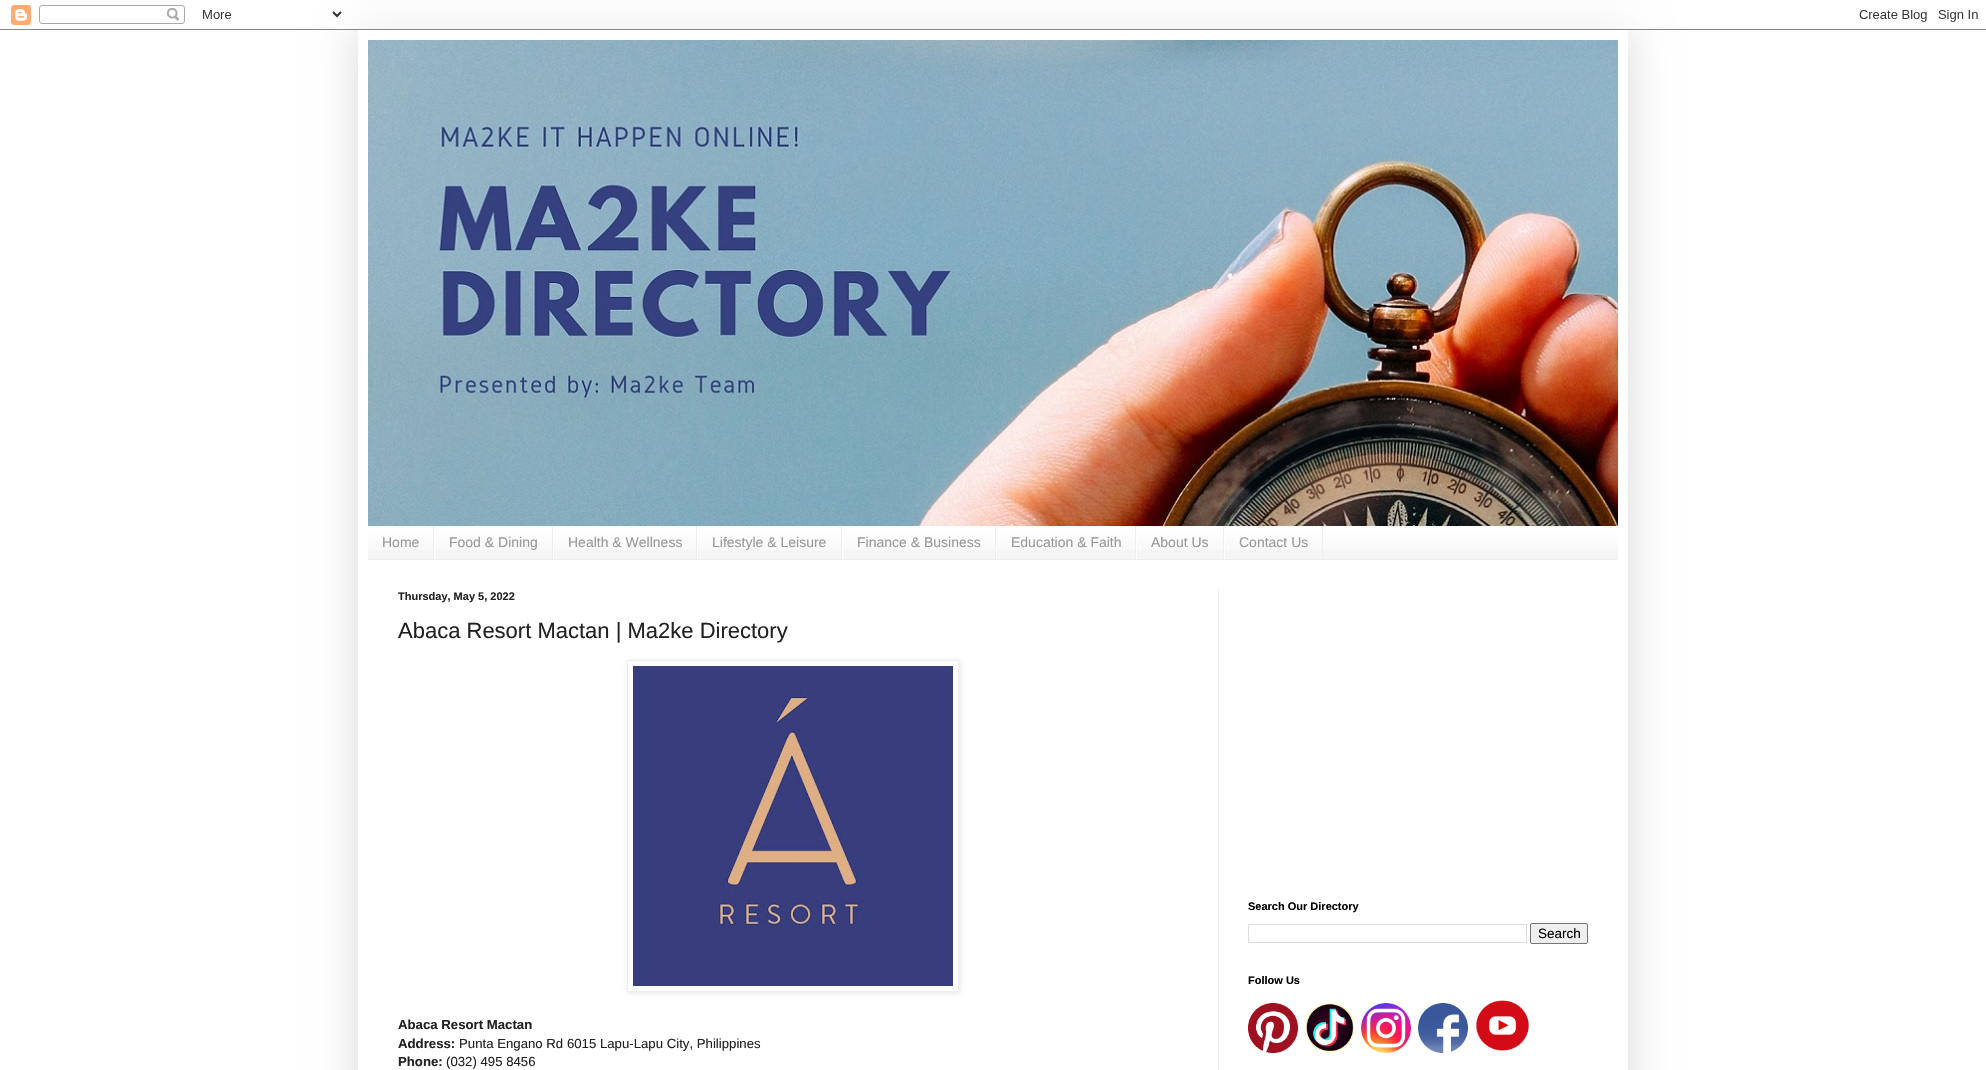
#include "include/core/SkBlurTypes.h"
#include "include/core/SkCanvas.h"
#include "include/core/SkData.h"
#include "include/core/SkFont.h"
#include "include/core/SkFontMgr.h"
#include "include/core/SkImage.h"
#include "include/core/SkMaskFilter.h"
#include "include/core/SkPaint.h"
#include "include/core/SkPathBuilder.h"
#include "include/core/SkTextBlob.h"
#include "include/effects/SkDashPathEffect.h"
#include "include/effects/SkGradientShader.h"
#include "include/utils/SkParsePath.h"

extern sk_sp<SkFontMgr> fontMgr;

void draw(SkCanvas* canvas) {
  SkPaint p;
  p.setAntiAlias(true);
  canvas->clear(SK_ColorWHITE);
  canvas->save();
  canvas->clipPath(SkPathBuilder(SkPathFillType::kEvenOdd).moveTo(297, 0).lineTo(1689, 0).lineTo(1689, 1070).lineTo(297, 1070).close().moveTo(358, 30).lineTo(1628, 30).lineTo(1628, 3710).lineTo(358, 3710).close().detach(), true);
  p.setColor(SkColorSetARGB(38, 0, 0, 0));
  p.setMaskFilter(SkMaskFilter::MakeBlur(kNormal_SkBlurStyle, 20));
  canvas->drawRect(SkRect::MakeLTRB(358, 30, 1628, 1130), p);
  p.setMaskFilter(nullptr);
  canvas->restore();
  canvas->drawImageRect(SkImages::DeferredFromEncodedData(SkData::MakeFromFileName("images/1.png")), SkRect::MakeLTRB(0, 5, 1986, 30), SkSamplingOptions());
  canvas->drawImageRect(SkImages::DeferredFromEncodedData(SkData::MakeFromFileName("images/2.png")), SkRect::MakeLTRB(368, 40, 1618, 526), SkSamplingOptions());
  p.setColor(SkColorSetRGB(245, 245, 245));
  canvas->drawRect(SkRect::MakeLTRB(368, 527, 1618, 559), p);
  canvas->drawImageRect(SkImages::DeferredFromEncodedData(SkData::MakeFromFileName("images/3.png")), SkRect::MakeLTRB(368, 526, 1618, 550), SkSamplingOptions());
  p.setColor(SkColorSetRGB(238, 238, 238));
  canvas->drawRect(SkRect::MakeLTRB(368, 559, 1618, 560), p);
  canvas->drawRect(SkRect::MakeLTRB(433, 526, 434, 559), p);
  canvas->drawRect(SkRect::MakeLTRB(552, 526, 553, 559), p);
  p.setColor(SK_ColorWHITE);
  canvas->drawRect(SkRect::MakeLTRB(434, 537, 435, 559), p);
  p.setColor(SkColorSetRGB(238, 238, 238));
  canvas->drawRect(SkRect::MakeLTRB(696, 526, 697, 559), p);
  p.setColor(SK_ColorWHITE);
  canvas->drawRect(SkRect::MakeLTRB(553, 537, 554, 559), p);
  p.setColor(SkColorSetRGB(238, 238, 238));
  canvas->drawRect(SkRect::MakeLTRB(841, 526, 842, 559), p);
  p.setColor(SK_ColorWHITE);
  canvas->drawRect(SkRect::MakeLTRB(697, 537, 698, 559), p);
  p.setColor(SkColorSetRGB(238, 238, 238));
  canvas->drawRect(SkRect::MakeLTRB(995, 526, 996, 559), p);
  p.setColor(SK_ColorWHITE);
  canvas->drawRect(SkRect::MakeLTRB(842, 537, 843, 559), p);
  p.setColor(SkColorSetRGB(238, 238, 238));
  canvas->drawRect(SkRect::MakeLTRB(1135, 526, 1136, 559), p);
  p.setColor(SK_ColorWHITE);
  canvas->drawRect(SkRect::MakeLTRB(996, 537, 997, 559), p);
  p.setColor(SkColorSetRGB(238, 238, 238));
  canvas->drawRect(SkRect::MakeLTRB(1223, 526, 1224, 559), p);
  p.setColor(SK_ColorWHITE);
  canvas->drawRect(SkRect::MakeLTRB(1136, 537, 1137, 559), p);
  p.setColor(SkColorSetRGB(238, 238, 238));
  canvas->drawRect(SkRect::MakeLTRB(1322, 526, 1323, 559), p);
  p.setColor(SK_ColorWHITE);
  canvas->drawRect(SkRect::MakeLTRB(1224, 537, 1225, 559), p);
  p.setColor(SkColorSetRGB(238, 238, 238));
  canvas->drawRect(SkRect::MakeLTRB(1218, 590, 1219, 1070), p);
  canvas->save();
  canvas->clipPath(SkPathBuilder(SkPathFillType::kEvenOdd).moveTo(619, 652).lineTo(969, 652).lineTo(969, 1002).lineTo(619, 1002).close().moveTo(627, 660).lineTo(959, 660).lineTo(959, 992).lineTo(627, 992).close().detach(), true);
  p.setColor(SkColorSetARGB(26, 0, 0, 0));
  p.setMaskFilter(SkMaskFilter::MakeBlur(kNormal_SkBlurStyle, 2.5f));
  canvas->drawRect(SkRect::MakeLTRB(628, 661, 960, 993), p);
  p.setMaskFilter(nullptr);
  canvas->restore();
  p.setStyle(SkPaint::kStroke_Style);
  p.setStrokeWidth(1);
  p.setColor(SkColorSetRGB(238, 238, 238));
  canvas->drawRect(SkRect::MakeLTRB(627.5f, 660.5f, 958.5f, 991.5f), p);
  canvas->drawImageRect(SkImages::DeferredFromEncodedData(SkData::MakeFromFileName("images/4.png")), SkRect::MakeLTRB(633, 666, 953, 986), SkSamplingOptions());
  p.setColor(SkColorSetRGB(221, 221, 221));
  canvas->drawRect(SkRect::MakeLTRB(1248.5f, 924.5f, 1526.5f, 942.5f), p);
  p.setStyle(SkPaint::kFill_Style);
  p.setColor(SkColorSetRGB(239, 239, 239));
  canvas->drawRoundRect(SkRect::MakeLTRB(1530.5f, 923.5f, 1587.5f, 943.5f), 1.5f, 1.5f, p);
  p.setStyle(SkPaint::kStroke_Style);
  p.setColor(SkColorSetRGB(118, 118, 118));
  canvas->drawRoundRect(SkRect::MakeLTRB(1530.5f, 923.5f, 1587.5f, 943.5f), 1.5f, 1.5f, p);
  canvas->drawImageRect(SkImages::DeferredFromEncodedData(SkData::MakeFromFileName("images/5.png")), SkRect::MakeLTRB(1248, 1003, 1298, 1053), SkSamplingOptions());
  canvas->drawImageRect(SkImages::DeferredFromEncodedData(SkData::MakeFromFileName("images/6.png")), SkRect::MakeLTRB(1305, 1003, 1355, 1053), SkSamplingOptions());
  canvas->drawImageRect(SkImages::DeferredFromEncodedData(SkData::MakeFromFileName("images/7.png")), SkRect::MakeLTRB(1361, 1003, 1411, 1053), SkSamplingOptions());
  canvas->drawImageRect(SkImages::DeferredFromEncodedData(SkData::MakeFromFileName("images/8.png")), SkRect::MakeLTRB(1418, 1003, 1468, 1053), SkSamplingOptions());
  canvas->drawImageRect(SkImages::DeferredFromEncodedData(SkData::MakeFromFileName("images/9.png")), SkRect::MakeLTRB(1476, 1000, 1529, 1051), SkSamplingOptions());
  SkFont font1(fontMgr->matchFamilyStyle("Liberation Sans", SkFontStyle::Normal()), 14);
  font1.setSubpixel(true);
  p.setStyle(SkPaint::kFill_Style);
  p.setColor(SkColorSetRGB(153, 153, 153));
  canvas->drawString("Home", 382, 547, font1, p);
  canvas->drawString("Food & Dining", 449, 547, font1, p);
  canvas->drawString("Health & Wellness", 568, 547, font1, p);
  canvas->drawString("Lifestyle & Leisure", 712, 547, font1, p);
  canvas->drawString("Finance & Business", 857, 547, font1, p);
  canvas->drawString("Education & Faith", 1011, 547, font1, p);
  canvas->drawString("About Us", 1151, 547, font1, p);
  canvas->drawString("Contact Us", 1239, 547, font1, p);
  SkFont font2(fontMgr->matchFamilyStyle("Liberation Sans", SkFontStyle::Bold()), 11);
  font2.setSubpixel(true);
  p.setColor(SkColorSetRGB(34, 34, 34));
  canvas->drawString("Thursday, May 5, 2022", 398, 600, font2, p);
  SkFont font3(fontMgr->matchFamilyStyle("Liberation Sans", SkFontStyle::Normal()), 22);
  font3.setSubpixel(true);
  canvas->drawString("Abaca Resort Mactan | Ma2ke Directory", 398, 638, font3, p);
  SkFont font4(fontMgr->matchFamilyStyle("Liberation Sans", SkFontStyle::Bold()), 13.2f);
  font4.setSubpixel(true);
  canvas->drawString("Abaca Resort Mactan", 398, 1029, font4, p);
  canvas->drawString("Address:", 398, 1048, font4, p);
  SkFont font5(fontMgr->matchFamilyStyle("Liberation Sans", SkFontStyle::Normal()), 13.2f);
  font5.setSubpixel(true);
  canvas->drawString("Punta Engano Rd 6015 Lapu-Lapu City, Philippines", 459, 1048, font5, p);
  canvas->drawString("Phone:", 398, 1066, font4, p);
  canvas->drawString("(032) 495 8456", 446, 1066, font5, p);
  p.setColor(SK_ColorBLACK);
  canvas->drawString("Search Our Directory", 1248, 910, font2, p);
  SkFont font6(fontMgr->matchFamilyStyle("Liberation Sans", SkFontStyle::Normal()), 13.5f);
  font6.setSubpixel(true);
  canvas->drawString("Search", 1538, 938, font6, p);
  canvas->drawString("Follow Us", 1248, 984, font2, p);
}
